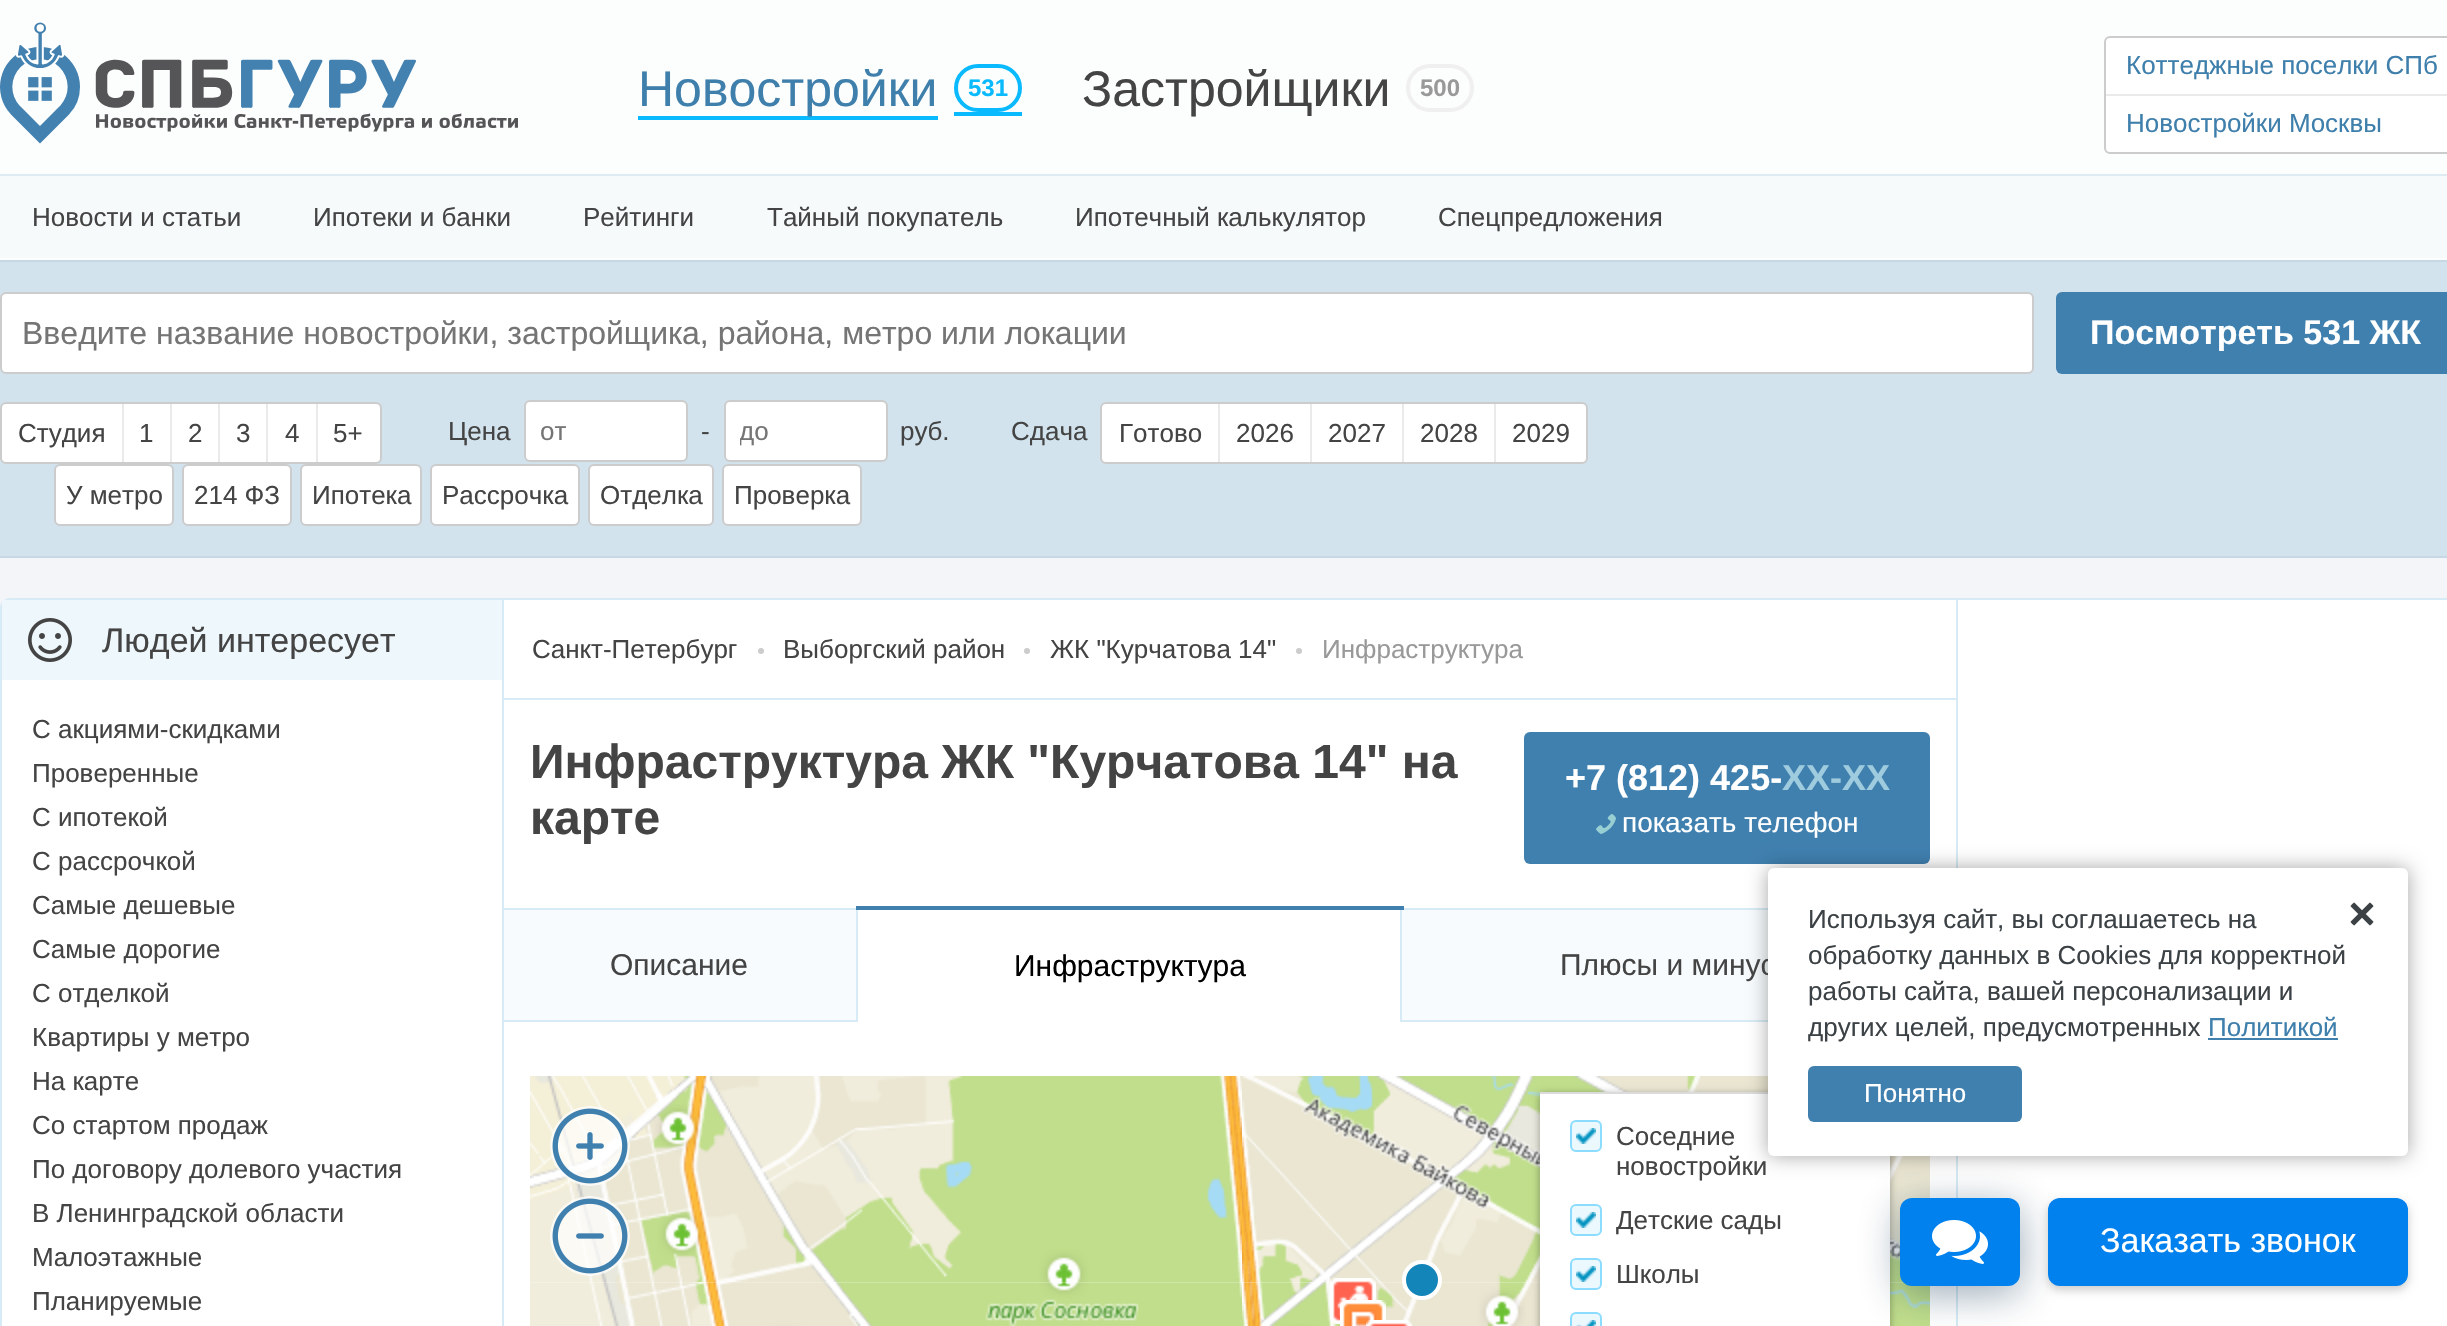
#include "include/core/SkBlurTypes.h"
#include "include/core/SkCanvas.h"
#include "include/core/SkData.h"
#include "include/core/SkFont.h"
#include "include/core/SkFontMgr.h"
#include "include/core/SkImage.h"
#include "include/core/SkMaskFilter.h"
#include "include/core/SkPaint.h"
#include "include/core/SkPathBuilder.h"
#include "include/core/SkTextBlob.h"
#include "include/effects/SkDashPathEffect.h"
#include "include/effects/SkGradientShader.h"
#include "include/utils/SkParsePath.h"

extern sk_sp<SkFontMgr> fontMgr;

void draw(SkCanvas* canvas) {
  SkPaint p;
  p.setAntiAlias(true);
  canvas->clear(SkColorSetRGB(243, 245, 248));
  p.setColor(SkColorSetRGB(252, 253, 253));
  canvas->drawRect(SkRect::MakeLTRB(0, 0, 2447, 260), p);
  p.setColor(SkColorSetRGB(223, 235, 243));
  canvas->drawRect(SkRect::MakeLTRB(0, 174, 2447, 176), p);
  canvas->drawImageRect(SkImages::DeferredFromEncodedData(SkData::MakeFromFileName("images/1.png")), SkRect::MakeLTRB(0, 22, 518, 144), SkSamplingOptions());
  p.setColor(SkColorSetRGB(10, 186, 255));
  canvas->drawRect(SkRect::MakeLTRB(638, 116, 938, 120), p);
  canvas->drawRect(SkRect::MakeLTRB(954, 112, 1022, 116), p);
  p.setStyle(SkPaint::kStroke_Style);
  p.setStrokeWidth(4);
  canvas->drawRoundRect(SkRect::MakeLTRB(956, 66, 1020, 110), 22, 22, p);
  p.setColor(SkColorSetRGB(240, 240, 240));
  canvas->drawRoundRect(SkRect::MakeLTRB(1408, 66, 1472, 110), 22, 22, p);
  p.setStyle(SkPaint::kFill_Style);
  p.setColor(SK_ColorWHITE);
  canvas->drawRoundRect(SkRect::MakeLTRB(2105, 37, 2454, 153), 5, 5, p);
  p.setStyle(SkPaint::kStroke_Style);
  p.setStrokeWidth(2);
  p.setColor(SkColorSetRGB(204, 204, 204));
  canvas->drawRoundRect(SkRect::MakeLTRB(2105, 37, 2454, 153), 5, 5, p);
  p.setStyle(SkPaint::kFill_Style);
  p.setColor(SkColorSetRGB(234, 234, 234));
  canvas->drawRect(SkRect::MakeLTRB(2106, 94, 2447, 96), p);
  p.setColor(SkColorSetRGB(247, 250, 251));
  canvas->drawRect(SkRect::MakeLTRB(0, 176, 2447, 258), p);
  p.setColor(SkColorSetRGB(210, 227, 237));
  canvas->drawRect(SkRect::MakeLTRB(0, 262, 2447, 556), p);
  p.setColor(SkColorSetRGB(199, 215, 228));
  canvas->drawRect(SkRect::MakeLTRB(0, 260, 2447, 262), p);
  canvas->drawRect(SkRect::MakeLTRB(0, 556, 2447, 558), p);
  p.setColor(SK_ColorWHITE);
  canvas->drawRoundRect(SkRect::MakeLTRB(1, 293, 2033, 373), 5, 5, p);
  p.setStyle(SkPaint::kStroke_Style);
  p.setColor(SkColorSetRGB(204, 204, 204));
  canvas->drawRoundRect(SkRect::MakeLTRB(1, 293, 2033, 373), 5, 5, p);
  p.setStyle(SkPaint::kFill_Style);
  p.setColor(SkColorSetRGB(64, 128, 175));
  canvas->drawRoundRect(SkRect::MakeLTRB(2056, 292, 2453, 374), 6, 6, p);
  p.setColor(SK_ColorWHITE);
  canvas->drawRoundRect(SkRect::MakeLTRB(1, 403, 381, 463), 5, 5, p);
  p.setStyle(SkPaint::kStroke_Style);
  p.setColor(SkColorSetRGB(204, 204, 204));
  canvas->drawRoundRect(SkRect::MakeLTRB(1, 403, 381, 463), 5, 5, p);
  p.setStyle(SkPaint::kFill_Style);
  p.setColor(SkColorSetRGB(234, 234, 234));
  canvas->drawRect(SkRect::MakeLTRB(122, 404, 124, 462), p);
  canvas->drawRect(SkRect::MakeLTRB(170, 404, 172, 462), p);
  canvas->drawRect(SkRect::MakeLTRB(218, 404, 220, 462), p);
  canvas->drawRect(SkRect::MakeLTRB(266, 404, 268, 462), p);
  canvas->drawRect(SkRect::MakeLTRB(316, 404, 318, 462), p);
  p.setColor(SK_ColorWHITE);
  canvas->drawRoundRect(SkRect::MakeLTRB(525, 401, 687, 461), 5, 5, p);
  p.setStyle(SkPaint::kStroke_Style);
  p.setColor(SkColorSetRGB(204, 204, 204));
  canvas->drawRoundRect(SkRect::MakeLTRB(525, 401, 687, 461), 5, 5, p);
  p.setStyle(SkPaint::kFill_Style);
  p.setColor(SK_ColorWHITE);
  canvas->drawRoundRect(SkRect::MakeLTRB(725, 401, 887, 461), 5, 5, p);
  p.setStyle(SkPaint::kStroke_Style);
  p.setColor(SkColorSetRGB(204, 204, 204));
  canvas->drawRoundRect(SkRect::MakeLTRB(725, 401, 887, 461), 5, 5, p);
  p.setStyle(SkPaint::kFill_Style);
  p.setColor(SK_ColorWHITE);
  canvas->drawRoundRect(SkRect::MakeLTRB(1101, 403, 1587, 463), 5, 5, p);
  p.setStyle(SkPaint::kStroke_Style);
  p.setColor(SkColorSetRGB(204, 204, 204));
  canvas->drawRoundRect(SkRect::MakeLTRB(1101, 403, 1587, 463), 5, 5, p);
  p.setStyle(SkPaint::kFill_Style);
  p.setColor(SkColorSetRGB(234, 234, 234));
  canvas->drawRect(SkRect::MakeLTRB(1218, 404, 1220, 462), p);
  canvas->drawRect(SkRect::MakeLTRB(1310, 404, 1312, 462), p);
  canvas->drawRect(SkRect::MakeLTRB(1402, 404, 1404, 462), p);
  canvas->drawRect(SkRect::MakeLTRB(1494, 404, 1496, 462), p);
  p.setColor(SK_ColorWHITE);
  canvas->drawRoundRect(SkRect::MakeLTRB(55, 465, 173, 525), 5, 5, p);
  p.setStyle(SkPaint::kStroke_Style);
  p.setColor(SkColorSetRGB(204, 204, 204));
  canvas->drawRoundRect(SkRect::MakeLTRB(55, 465, 173, 525), 5, 5, p);
  p.setStyle(SkPaint::kFill_Style);
  p.setColor(SK_ColorWHITE);
  canvas->drawRoundRect(SkRect::MakeLTRB(183, 465, 291, 525), 5, 5, p);
  p.setStyle(SkPaint::kStroke_Style);
  p.setColor(SkColorSetRGB(204, 204, 204));
  canvas->drawRoundRect(SkRect::MakeLTRB(183, 465, 291, 525), 5, 5, p);
  p.setStyle(SkPaint::kFill_Style);
  p.setColor(SK_ColorWHITE);
  canvas->drawRoundRect(SkRect::MakeLTRB(301, 465, 421, 525), 5, 5, p);
  p.setStyle(SkPaint::kStroke_Style);
  p.setColor(SkColorSetRGB(204, 204, 204));
  canvas->drawRoundRect(SkRect::MakeLTRB(301, 465, 421, 525), 5, 5, p);
  p.setStyle(SkPaint::kFill_Style);
  p.setColor(SK_ColorWHITE);
  canvas->drawRoundRect(SkRect::MakeLTRB(431, 465, 579, 525), 5, 5, p);
  p.setStyle(SkPaint::kStroke_Style);
  p.setColor(SkColorSetRGB(204, 204, 204));
  canvas->drawRoundRect(SkRect::MakeLTRB(431, 465, 579, 525), 5, 5, p);
  p.setStyle(SkPaint::kFill_Style);
  p.setColor(SK_ColorWHITE);
  canvas->drawRoundRect(SkRect::MakeLTRB(589, 465, 713, 525), 5, 5, p);
  p.setStyle(SkPaint::kStroke_Style);
  p.setColor(SkColorSetRGB(204, 204, 204));
  canvas->drawRoundRect(SkRect::MakeLTRB(589, 465, 713, 525), 5, 5, p);
  p.setStyle(SkPaint::kFill_Style);
  p.setColor(SK_ColorWHITE);
  canvas->drawRoundRect(SkRect::MakeLTRB(723, 465, 861, 525), 5, 5, p);
  p.setStyle(SkPaint::kStroke_Style);
  p.setColor(SkColorSetRGB(204, 204, 204));
  canvas->drawRoundRect(SkRect::MakeLTRB(723, 465, 861, 525), 5, 5, p);
  p.setColor(SkColorSetRGB(214, 235, 245));
  canvas->drawRoundRect(SkRect::MakeLTRB(1, 599, 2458, 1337), 9, 9, p);
  p.setStyle(SkPaint::kFill_Style);
  p.setColor(SK_ColorWHITE);
  canvas->drawRect(SkRect::MakeLTRB(504, 600, 2447, 1326), p);
  canvas->drawRect(SkRect::MakeLTRB(2, 680, 502, 1326), p);
  p.setColor(SkColorSetRGB(238, 247, 251));
  canvas->drawRect(SkRect::MakeLTRB(2, 600, 502, 680), p);
  canvas->drawImageRect(SkImages::DeferredFromEncodedData(SkData::MakeFromFileName("images/2.png")), SkRect::MakeLTRB(28, 618, 72, 662), SkSamplingOptions());
  p.setColor(SkColorSetRGB(214, 235, 245));
  canvas->drawRect(SkRect::MakeLTRB(502, 698, 1958, 700), p);
  canvas->drawRect(SkRect::MakeLTRB(502, 908, 858, 910), p);
  canvas->drawRect(SkRect::MakeLTRB(856, 908, 858, 1022), p);
  canvas->drawRect(SkRect::MakeLTRB(502, 1020, 858, 1022), p);
  canvas->drawRect(SkRect::MakeLTRB(502, 600, 504, 1326), p);
  p.setColor(SkColorSetRGB(204, 204, 204));
  canvas->drawCircle(761, 651, 3, p);
  canvas->drawCircle(1027, 651, 3, p);
  canvas->drawCircle(1299, 651, 3, p);
  p.setColor(SkColorSetRGB(64, 128, 175));
  canvas->drawRoundRect(SkRect::MakeLTRB(1524, 732, 1930, 864), 6, 6, p);
  canvas->drawImageRect(SkImages::DeferredFromEncodedData(SkData::MakeFromFileName("images/3.png")), SkRect::MakeLTRB(1596, 814, 1616, 834), SkSamplingOptions());
  p.setColor(SkColorSetRGB(247, 251, 253));
  canvas->drawRect(SkRect::MakeLTRB(504, 910, 856, 1020), p);
  p.setColor(SkColorSetRGB(214, 235, 245));
  canvas->drawRect(SkRect::MakeLTRB(1400, 908, 1768, 910), p);
  canvas->drawRect(SkRect::MakeLTRB(1400, 1020, 1768, 1022), p);
  canvas->drawRect(SkRect::MakeLTRB(1400, 908, 1402, 1022), p);
  p.setColor(SkColorSetRGB(64, 128, 175));
  canvas->drawRect(SkRect::MakeLTRB(856, 906, 1404, 910), p);
  p.setColor(SkColorSetRGB(247, 251, 253));
  canvas->drawRect(SkRect::MakeLTRB(1402, 910, 1768, 1020), p);
  canvas->drawImageRect(SkImages::DeferredFromEncodedData(SkData::MakeFromFileName("images/4.png")), SkRect::MakeLTRB(530, 1076, 730, 1282), SkSamplingOptions());
  canvas->drawImageRect(SkImages::DeferredFromEncodedData(SkData::MakeFromFileName("images/5.png")), SkRect::MakeLTRB(730, 1076, 1242, 1282), SkSamplingOptions());
  canvas->drawImageRect(SkImages::DeferredFromEncodedData(SkData::MakeFromFileName("images/6.png")), SkRect::MakeLTRB(1242, 1076, 1754, 1282), SkSamplingOptions());
  canvas->drawImageRect(SkImages::DeferredFromEncodedData(SkData::MakeFromFileName("images/7.png")), SkRect::MakeLTRB(1754, 1076, 1930, 1282), SkSamplingOptions());
  canvas->drawImageRect(SkImages::DeferredFromEncodedData(SkData::MakeFromFileName("images/8.png")), SkRect::MakeLTRB(530, 1282, 730, 1326), SkSamplingOptions());
  canvas->drawImageRect(SkImages::DeferredFromEncodedData(SkData::MakeFromFileName("images/9.png")), SkRect::MakeLTRB(730, 1282, 1242, 1326), SkSamplingOptions());
  canvas->drawImageRect(SkImages::DeferredFromEncodedData(SkData::MakeFromFileName("images/10.png")), SkRect::MakeLTRB(1242, 1282, 1540, 1326), SkSamplingOptions());
  canvas->drawImageRect(SkImages::DeferredFromEncodedData(SkData::MakeFromFileName("images/11.png")), SkRect::MakeLTRB(1890, 1282, 1930, 1326), SkSamplingOptions());
  canvas->drawImageRect(SkImages::DeferredFromEncodedData(SkData::MakeFromFileName("images/12.png")), SkRect::MakeLTRB(1330, 1278, 1376, 1324), SkSamplingOptions());
  p.setColor(SkColorSetRGB(20, 133, 185));
  canvas->drawCircle(1422, 1280, 18, p);
  p.setStyle(SkPaint::kStroke_Style);
  p.setStrokeWidth(4);
  p.setColor(SK_ColorWHITE);
  canvas->drawCircle(1422, 1280, 18, p);
  canvas->drawImageRect(SkImages::DeferredFromEncodedData(SkData::MakeFromFileName("images/13.png")), SkRect::MakeLTRB(1340, 1300, 1386, 1326), SkSamplingOptions());
  canvas->drawImageRect(SkImages::DeferredFromEncodedData(SkData::MakeFromFileName("images/14.png")), SkRect::MakeLTRB(1366, 1320, 1412, 1326), SkSamplingOptions());
  canvas->drawImageRect(SkImages::DeferredFromEncodedData(SkData::MakeFromFileName("images/15.png")), SkRect::MakeLTRB(550, 1106, 630, 1186), SkSamplingOptions());
  canvas->drawImageRect(SkImages::DeferredFromEncodedData(SkData::MakeFromFileName("images/16.png")), SkRect::MakeLTRB(550, 1196, 630, 1276), SkSamplingOptions());
  p.setStyle(SkPaint::kFill_Style);
  p.setColor(SkColorSetARGB(89, 0, 0, 0));
  p.setMaskFilter(SkMaskFilter::MakeBlur(kNormal_SkBlurStyle, 4));
  canvas->drawRect(SkRect::MakeLTRB(1540, 1094, 1890, 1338), p);
  p.setMaskFilter(nullptr);
  p.setColor(SK_ColorWHITE);
  canvas->drawRect(SkRect::MakeLTRB(1540, 1094, 1890, 1326), p);
  p.setColor(SkColorSetRGB(219, 219, 219));
  canvas->drawRect(SkRect::MakeLTRB(1540, 1092, 1768, 1094), p);
  p.setColor(SkColorSetRGB(235, 249, 255));
  canvas->drawRoundRect(SkRect::MakeLTRB(1571, 1121, 1601, 1151), 5, 5, p);
  p.setStyle(SkPaint::kStroke_Style);
  p.setStrokeWidth(2);
  p.setColor(SkColorSetRGB(139, 220, 255));
  canvas->drawRoundRect(SkRect::MakeLTRB(1571, 1121, 1601, 1151), 5, 5, p);
  canvas->drawImageRect(SkImages::DeferredFromEncodedData(SkData::MakeFromFileName("images/17.png")), SkRect::MakeLTRB(1576, 1128, 1596, 1144), SkSamplingOptions());
  p.setStyle(SkPaint::kFill_Style);
  p.setColor(SkColorSetRGB(235, 249, 255));
  canvas->drawRoundRect(SkRect::MakeLTRB(1571, 1205, 1601, 1235), 5, 5, p);
  p.setStyle(SkPaint::kStroke_Style);
  p.setColor(SkColorSetRGB(139, 220, 255));
  canvas->drawRoundRect(SkRect::MakeLTRB(1571, 1205, 1601, 1235), 5, 5, p);
  canvas->drawImageRect(SkImages::DeferredFromEncodedData(SkData::MakeFromFileName("images/17.png")), SkRect::MakeLTRB(1576, 1212, 1596, 1228), SkSamplingOptions());
  p.setStyle(SkPaint::kFill_Style);
  p.setColor(SkColorSetRGB(235, 249, 255));
  canvas->drawRoundRect(SkRect::MakeLTRB(1571, 1259, 1601, 1289), 5, 5, p);
  p.setStyle(SkPaint::kStroke_Style);
  p.setColor(SkColorSetRGB(139, 220, 255));
  canvas->drawRoundRect(SkRect::MakeLTRB(1571, 1259, 1601, 1289), 5, 5, p);
  canvas->drawImageRect(SkImages::DeferredFromEncodedData(SkData::MakeFromFileName("images/17.png")), SkRect::MakeLTRB(1576, 1266, 1596, 1282), SkSamplingOptions());
  p.setStyle(SkPaint::kFill_Style);
  p.setColor(SkColorSetRGB(235, 249, 255));
  canvas->drawRoundRect(SkRect::MakeLTRB(1571, 1313, 1601, 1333), 5, 5, p);
  p.setStyle(SkPaint::kStroke_Style);
  p.setColor(SkColorSetRGB(139, 220, 255));
  canvas->drawRoundRect(SkRect::MakeLTRB(1571, 1313, 1601, 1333), 5, 5, p);
  canvas->drawImageRect(SkImages::DeferredFromEncodedData(SkData::MakeFromFileName("images/18.png")), SkRect::MakeLTRB(1576, 1320, 1596, 1326), SkSamplingOptions());
  p.setStyle(SkPaint::kFill_Style);
  p.setColor(SkColorSetRGB(214, 235, 245));
  canvas->drawRect(SkRect::MakeLTRB(1956, 600, 1958, 1326), p);
  p.setColor(SkColorSetARGB(89, 0, 0, 0));
  p.setMaskFilter(SkMaskFilter::MakeBlur(kNormal_SkBlurStyle, 10));
  canvas->drawRoundRect(SkRect::MakeLTRB(1768, 868, 2408, 1156), 6, 6, p);
  p.setMaskFilter(nullptr);
  p.setColor(SkColorSetARGB(102, 6, 42, 74));
  p.setMaskFilter(SkMaskFilter::MakeBlur(kNormal_SkBlurStyle, 20));
  canvas->drawRoundRect(SkRect::MakeLTRB(1900, 1206, 2020, 1294), 12, 12, p);
  p.setMaskFilter(nullptr);
  p.setColor(SkColorSetRGB(0, 129, 238));
  canvas->drawRoundRect(SkRect::MakeLTRB(1900, 1198, 2020, 1286), 12, 12, p);
  canvas->drawImageRect(SkImages::DeferredFromEncodedData(SkData::MakeFromFileName("images/20.png")), SkRect::MakeLTRB(1932, 1220, 1988, 1264), SkSamplingOptions());
  p.setColor(SkColorSetARGB(51, 0, 0, 0));
  p.setMaskFilter(SkMaskFilter::MakeBlur(kNormal_SkBlurStyle, 5));
  canvas->drawRoundRect(SkRect::MakeLTRB(2048, 1202, 2408, 1290), 12, 12, p);
  p.setMaskFilter(nullptr);
  p.setColor(SkColorSetRGB(0, 129, 238));
  canvas->drawRoundRect(SkRect::MakeLTRB(2048, 1198, 2408, 1286), 12, 12, p);
  SkFont font1(fontMgr->matchFamilyStyle("Liberation Sans", SkFontStyle::Normal()), 50);
  font1.setSubpixel(true);
  p.setColor(SkColorSetRGB(63, 127, 172));
  canvas->drawString("Новостройки", 638, 106, font1, p);
  SkFont font2(fontMgr->matchFamilyStyle("Liberation Sans", SkFontStyle::Bold()), 24);
  font2.setSubpixel(true);
  p.setColor(SkColorSetRGB(10, 186, 255));
  canvas->drawString("531", 968, 96, font2, p);
  p.setColor(SkColorSetRGB(68, 68, 68));
  canvas->drawString("Застройщики", 1082, 106, font1, p);
  p.setColor(SkColorSetRGB(153, 153, 153));
  canvas->drawString("500", 1420, 96, font2, p);
  SkFont font3(fontMgr->matchFamilyStyle("Liberation Sans", SkFontStyle::Normal()), 26);
  font3.setSubpixel(true);
  p.setColor(SkColorSetRGB(63, 127, 172));
  canvas->drawString("Коттеджные поселки СПб", 2126, 74, font3, p);
  canvas->drawString("Новостройки Москвы", 2126, 132, font3, p);
  p.setColor(SkColorSetRGB(68, 68, 68));
  canvas->drawString("Новости и статьи", 32, 226, font3, p);
  canvas->drawString("Ипотеки и банки", 313, 226, font3, p);
  canvas->drawString("Рейтинги", 583, 226, font3, p);
  canvas->drawString("Тайный покупатель", 767, 226, font3, p);
  canvas->drawString("Ипотечный калькулятор", 1075, 226, font3, p);
  canvas->drawString("Спецпредложения", 1438, 226, font3, p);
  SkFont font4(fontMgr->matchFamilyStyle("Liberation Sans", SkFontStyle::Normal()), 32);
  font4.setSubpixel(true);
  p.setColor(SkColorSetRGB(117, 117, 117));
  canvas->drawString("Введите название новостройки, застройщика, района, метро или локации", 22, 344, font4, p);
  SkFont font5(fontMgr->matchFamilyStyle("Liberation Sans", SkFontStyle::Bold()), 34);
  font5.setSubpixel(true);
  p.setColor(SK_ColorWHITE);
  canvas->drawString("Посмотреть 531 ЖК", 2090, 344, font5, p);
  p.setColor(SkColorSetRGB(68, 68, 68));
  canvas->drawString("Студия", 18, 442, font3, p);
  canvas->drawString("1", 139, 442, font3, p);
  canvas->drawString("2", 188, 442, font3, p);
  canvas->drawString("3", 236, 442, font3, p);
  canvas->drawString("4", 285, 442, font3, p);
  canvas->drawString("5+", 333, 442, font3, p);
  canvas->drawString("Цена", 448, 440, font3, p);
  p.setColor(SkColorSetRGB(117, 117, 117));
  canvas->drawString("от", 540, 440, font3, p);
  p.setColor(SkColorSetRGB(68, 68, 68));
  canvas->drawString("-", 701, 440, font3, p);
  canvas->save();
  canvas->clipRect(SkRect::MakeLTRB(740, 416, 872, 446));
  p.setColor(SkColorSetRGB(117, 117, 117));
  canvas->drawString("до", 739, 440, font3, p);
  canvas->restore();
  p.setColor(SkColorSetRGB(68, 68, 68));
  canvas->drawString("руб.", 900, 440, font3, p);
  canvas->drawString("Сдача", 1011, 440, font3, p);
  canvas->drawString("Готово", 1119, 442, font3, p);
  canvas->drawString("2026", 1236, 442, font3, p);
  canvas->drawString("2027", 1328, 442, font3, p);
  canvas->drawString("2028", 1420, 442, font3, p);
  canvas->drawString("2029", 1512, 442, font3, p);
  canvas->drawString("У метро", 66, 504, font3, p);
  canvas->drawString("214 ФЗ", 194, 504, font3, p);
  canvas->drawString("Ипотека", 312, 504, font3, p);
  canvas->drawString("Рассрочка", 442, 504, font3, p);
  canvas->drawString("Отделка", 600, 504, font3, p);
  canvas->drawString("Проверка", 734, 504, font3, p);
  SkFont font6(fontMgr->matchFamilyStyle("Liberation Sans", SkFontStyle::Normal()), 34);
  font6.setSubpixel(true);
  canvas->drawString("Людей интересует", 102, 652, font6, p);
  canvas->drawString("С акциями-скидками", 32, 738, font3, p);
  canvas->drawString("Проверенные", 32, 782, font3, p);
  canvas->drawString("С ипотекой", 32, 826, font3, p);
  canvas->drawString("С рассрочкой", 32, 870, font3, p);
  canvas->drawString("Самые дешевые", 32, 914, font3, p);
  canvas->drawString("Самые дорогие", 32, 958, font3, p);
  canvas->drawString("С отделкой", 32, 1002, font3, p);
  canvas->drawString("Квартиры у метро", 32, 1046, font3, p);
  canvas->drawString("На карте", 32, 1090, font3, p);
  canvas->drawString("Со стартом продаж", 32, 1134, font3, p);
  canvas->drawString("По договору долевого участия", 32, 1178, font3, p);
  canvas->drawString("В Ленинградской области", 32, 1222, font3, p);
  canvas->drawString("Малоэтажные", 32, 1266, font3, p);
  canvas->drawString("Планируемые", 32, 1310, font3, p);
  canvas->drawString("Санкт-Петербург", 532, 658, font3, p);
  canvas->drawString("Выборгский район", 783, 658, font3, p);
  canvas->drawString("ЖК \"Курчатова 14\"", 1050, 658, font3, p);
  p.setColor(SkColorSetRGB(153, 153, 153));
  canvas->drawString("Инфраструктура", 1322, 658, font3, p);
  SkFont font7(fontMgr->matchFamilyStyle("Liberation Sans", SkFontStyle::Bold()), 48);
  font7.setSubpixel(true);
  p.setColor(SkColorSetRGB(68, 68, 68));
  canvas->drawString("Инфраструктура ЖК \"Курчатова 14\" на", 530, 778, font7, p);
  canvas->drawString("карте", 530, 834, font7, p);
  SkFont font8(fontMgr->matchFamilyStyle("Liberation Sans", SkFontStyle::Bold()), 36);
  font8.setSubpixel(true);
  p.setColor(SK_ColorWHITE);
  canvas->drawString("+7 (812) 425-", 1565, 790, font8, p);
  p.setColor(SkColorSetRGB(159, 203, 223));
  canvas->drawString("XX-XX", 1782, 790, font8, p);
  SkFont font9(fontMgr->matchFamilyStyle("Liberation Sans", SkFontStyle::Normal()), 28);
  font9.setSubpixel(true);
  p.setColor(SK_ColorWHITE);
  canvas->drawString("показать телефон", 1622, 832, font9, p);
  SkFont font10(fontMgr->matchFamilyStyle("Liberation Sans", SkFontStyle::Normal()), 30);
  font10.setSubpixel(true);
  p.setColor(SkColorSetRGB(68, 68, 68));
  canvas->drawString("Описание", 610, 975, font10, p);
  p.setColor(SK_ColorBLACK);
  canvas->drawString("Инфраструктура", 1014, 976, font10, p);
  p.setColor(SkColorSetRGB(68, 68, 68));
  canvas->drawString("Плюсы и минус", 1560, 975, font10, p);
  canvas->drawString("Соседние", 1616, 1145, font3, p);
  canvas->drawString("новостройки", 1616, 1175, font3, p);
  canvas->drawString("Детские сады", 1616, 1229, font3, p);
  canvas->drawString("Школы", 1616, 1283, font3, p);
  p.setColor(SK_ColorWHITE);
  canvas->drawRoundRect(SkRect::MakeLTRB(1768, 868, 2408, 1156), 6, 6, p);
  p.setColor(SkColorSetRGB(59, 65, 68));
  canvas->drawString("Используя сайт, вы соглашаетесь на", 1808, 928, font3, p);
  canvas->drawString("обработку данных в Cookies для корректной", 1808, 964, font3, p);
  canvas->drawString("работы сайта, вашей персонализации и", 1808, 1000, font3, p);
  canvas->drawString("других целей, предусмотренных", 1808, 1036, font3, p);
  p.setColor(SkColorSetRGB(63, 127, 172));
  canvas->drawString("Политикой", 2208, 1036, font3, p);
  p.setColor(SkColorSetRGB(64, 128, 175));
  canvas->drawRect(SkRect::MakeLTRB(2208, 1038, 2338, 1040), p);
  canvas->drawRoundRect(SkRect::MakeLTRB(1808, 1066, 2022, 1122), 6, 6, p);
  p.setColor(SK_ColorWHITE);
  canvas->drawString("Понятно", 1864, 1102, font3, p);
  canvas->drawImageRect(SkImages::DeferredFromEncodedData(SkData::MakeFromFileName("images/19.png")), SkRect::MakeLTRB(2350, 902, 2374, 926), SkSamplingOptions());
  canvas->drawString("Заказать звонок", 2100, 1252, font6, p);
}
